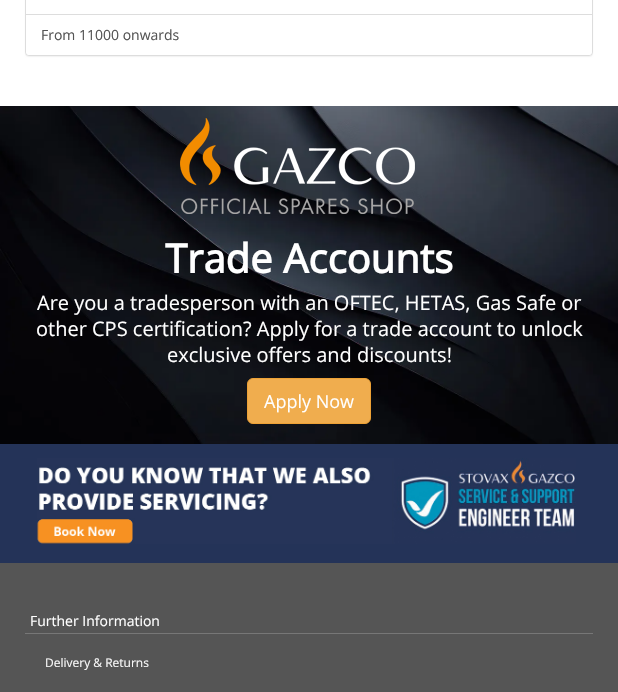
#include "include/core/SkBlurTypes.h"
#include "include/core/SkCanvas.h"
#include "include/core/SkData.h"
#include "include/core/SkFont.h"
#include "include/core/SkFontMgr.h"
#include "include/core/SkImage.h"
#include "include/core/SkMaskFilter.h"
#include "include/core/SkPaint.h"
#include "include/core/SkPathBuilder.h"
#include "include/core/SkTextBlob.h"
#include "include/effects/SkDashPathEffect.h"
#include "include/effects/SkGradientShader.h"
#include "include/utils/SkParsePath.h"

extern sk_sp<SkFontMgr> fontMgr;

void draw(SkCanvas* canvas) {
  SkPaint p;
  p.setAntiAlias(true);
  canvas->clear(SK_ColorWHITE);
  p.setColor(SkColorSetARGB(13, 0, 0, 0));
  p.setMaskFilter(SkMaskFilter::MakeBlur(kNormal_SkBlurStyle, 0.5f));
  canvas->drawRoundRect(SkRect::MakeLTRB(25, -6, 593, 57), 4, 4, p);
  p.setMaskFilter(nullptr);
  p.setColor(SK_ColorWHITE);
  canvas->drawRoundRect(SkRect::MakeLTRB(25.5f, -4.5f, 592.5f, 55.5f), 3.5f, 3.5f, p);
  p.setStyle(SkPaint::kStroke_Style);
  p.setStrokeWidth(1);
  p.setColor(SkColorSetRGB(221, 221, 221));
  canvas->drawRoundRect(SkRect::MakeLTRB(25.5f, -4.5f, 592.5f, 55.5f), 3.5f, 3.5f, p);
  p.setStyle(SkPaint::kFill_Style);
  p.setColor(SK_ColorWHITE);
  canvas->drawPath(SkPathBuilder().moveTo(26, 14).lineTo(592, 14).lineTo(592, 52).cubicTo(592, 53.5f, 590.5f, 55, 589, 55).lineTo(29, 55).cubicTo(27.5f, 55, 26, 53.5f, 26, 52).close().detach(), p);
  p.setColor(SkColorSetRGB(221, 221, 221));
  canvas->drawRect(SkRect::MakeLTRB(26, 14, 592, 15), p);
  canvas->drawImageRect(SkImages::DeferredFromEncodedData(SkData::MakeFromFileName("images/1.png")), SkRect::MakeLTRB(0, 106, 618, 444), SkSamplingOptions());
  canvas->drawImageRect(SkImages::DeferredFromEncodedData(SkData::MakeFromFileName("images/2.png")), SkRect::MakeLTRB(180, 118, 415, 214), SkSamplingOptions());
  p.setColor(SkColorSetRGB(240, 173, 78));
  canvas->drawRoundRect(SkRect::MakeLTRB(247.5f, 378.5f, 370.5f, 423.5f), 5.5f, 5.5f, p);
  p.setStyle(SkPaint::kStroke_Style);
  p.setColor(SkColorSetRGB(238, 162, 54));
  canvas->drawRoundRect(SkRect::MakeLTRB(247.5f, 378.5f, 370.5f, 423.5f), 5.5f, 5.5f, p);
  p.setStyle(SkPaint::kFill_Style);
  p.setColor(SkColorSetRGB(36, 51, 88));
  canvas->drawRect(SkRect::MakeLTRB(0, 444, 618, 563), p);
  canvas->drawImageRect(SkImages::DeferredFromEncodedData(SkData::MakeFromFileName("images/3.png")), SkRect::MakeLTRB(37, 458, 576, 544), SkSamplingOptions());
  p.setColor(SkColorSetRGB(85, 85, 85));
  canvas->drawRect(SkRect::MakeLTRB(0, 563, 618, 692), p);
  p.setColor(SkColorSetRGB(119, 119, 119));
  canvas->drawRect(SkRect::MakeLTRB(25, 633, 593, 634), p);
  SkFont font1(fontMgr->matchFamilyStyle("Open Sans", SkFontStyle::Normal()), 14);
  font1.setSubpixel(true);
  p.setColor(SkColorSetRGB(85, 85, 85));
  canvas->drawString("From 11000 onwards", 41, 40, font1, p);
  SkFont font2(fontMgr->matchFamilyStyle("Open Sans", SkFontStyle::Bold()), 40);
  font2.setSubpixel(true);
  p.setColor(SK_ColorWHITE);
  canvas->drawString("Trade Accounts", 165, 273, font2, p);
  SkFont font3(fontMgr->matchFamilyStyle("Open Sans", SkFontStyle::Normal()), 20);
  font3.setSubpixel(true);
  canvas->drawString("Are you a tradesperson with an OFTEC, HETAS, Gas Safe or", 37, 310, font3, p);
  canvas->drawString("other CPS certification? Apply for a trade account to unlock", 36, 336, font3, p);
  canvas->drawString("exclusive offers and discounts!", 167, 362, font3, p);
  SkFont font4(fontMgr->matchFamilyStyle("Open Sans", SkFontStyle::Normal()), 18);
  font4.setSubpixel(true);
  canvas->drawString("Apply Now", 264, 408, font4, p);
  canvas->drawString("Further Information", 30, 626, font1, p);
  SkFont font5(fontMgr->matchFamilyStyle("Open Sans", SkFontStyle::Normal()), 12);
  font5.setSubpixel(true);
  p.setColor(SkColorSetRGB(249, 249, 249));
  canvas->drawString("Delivery & Returns", 45, 667, font5, p);
}
